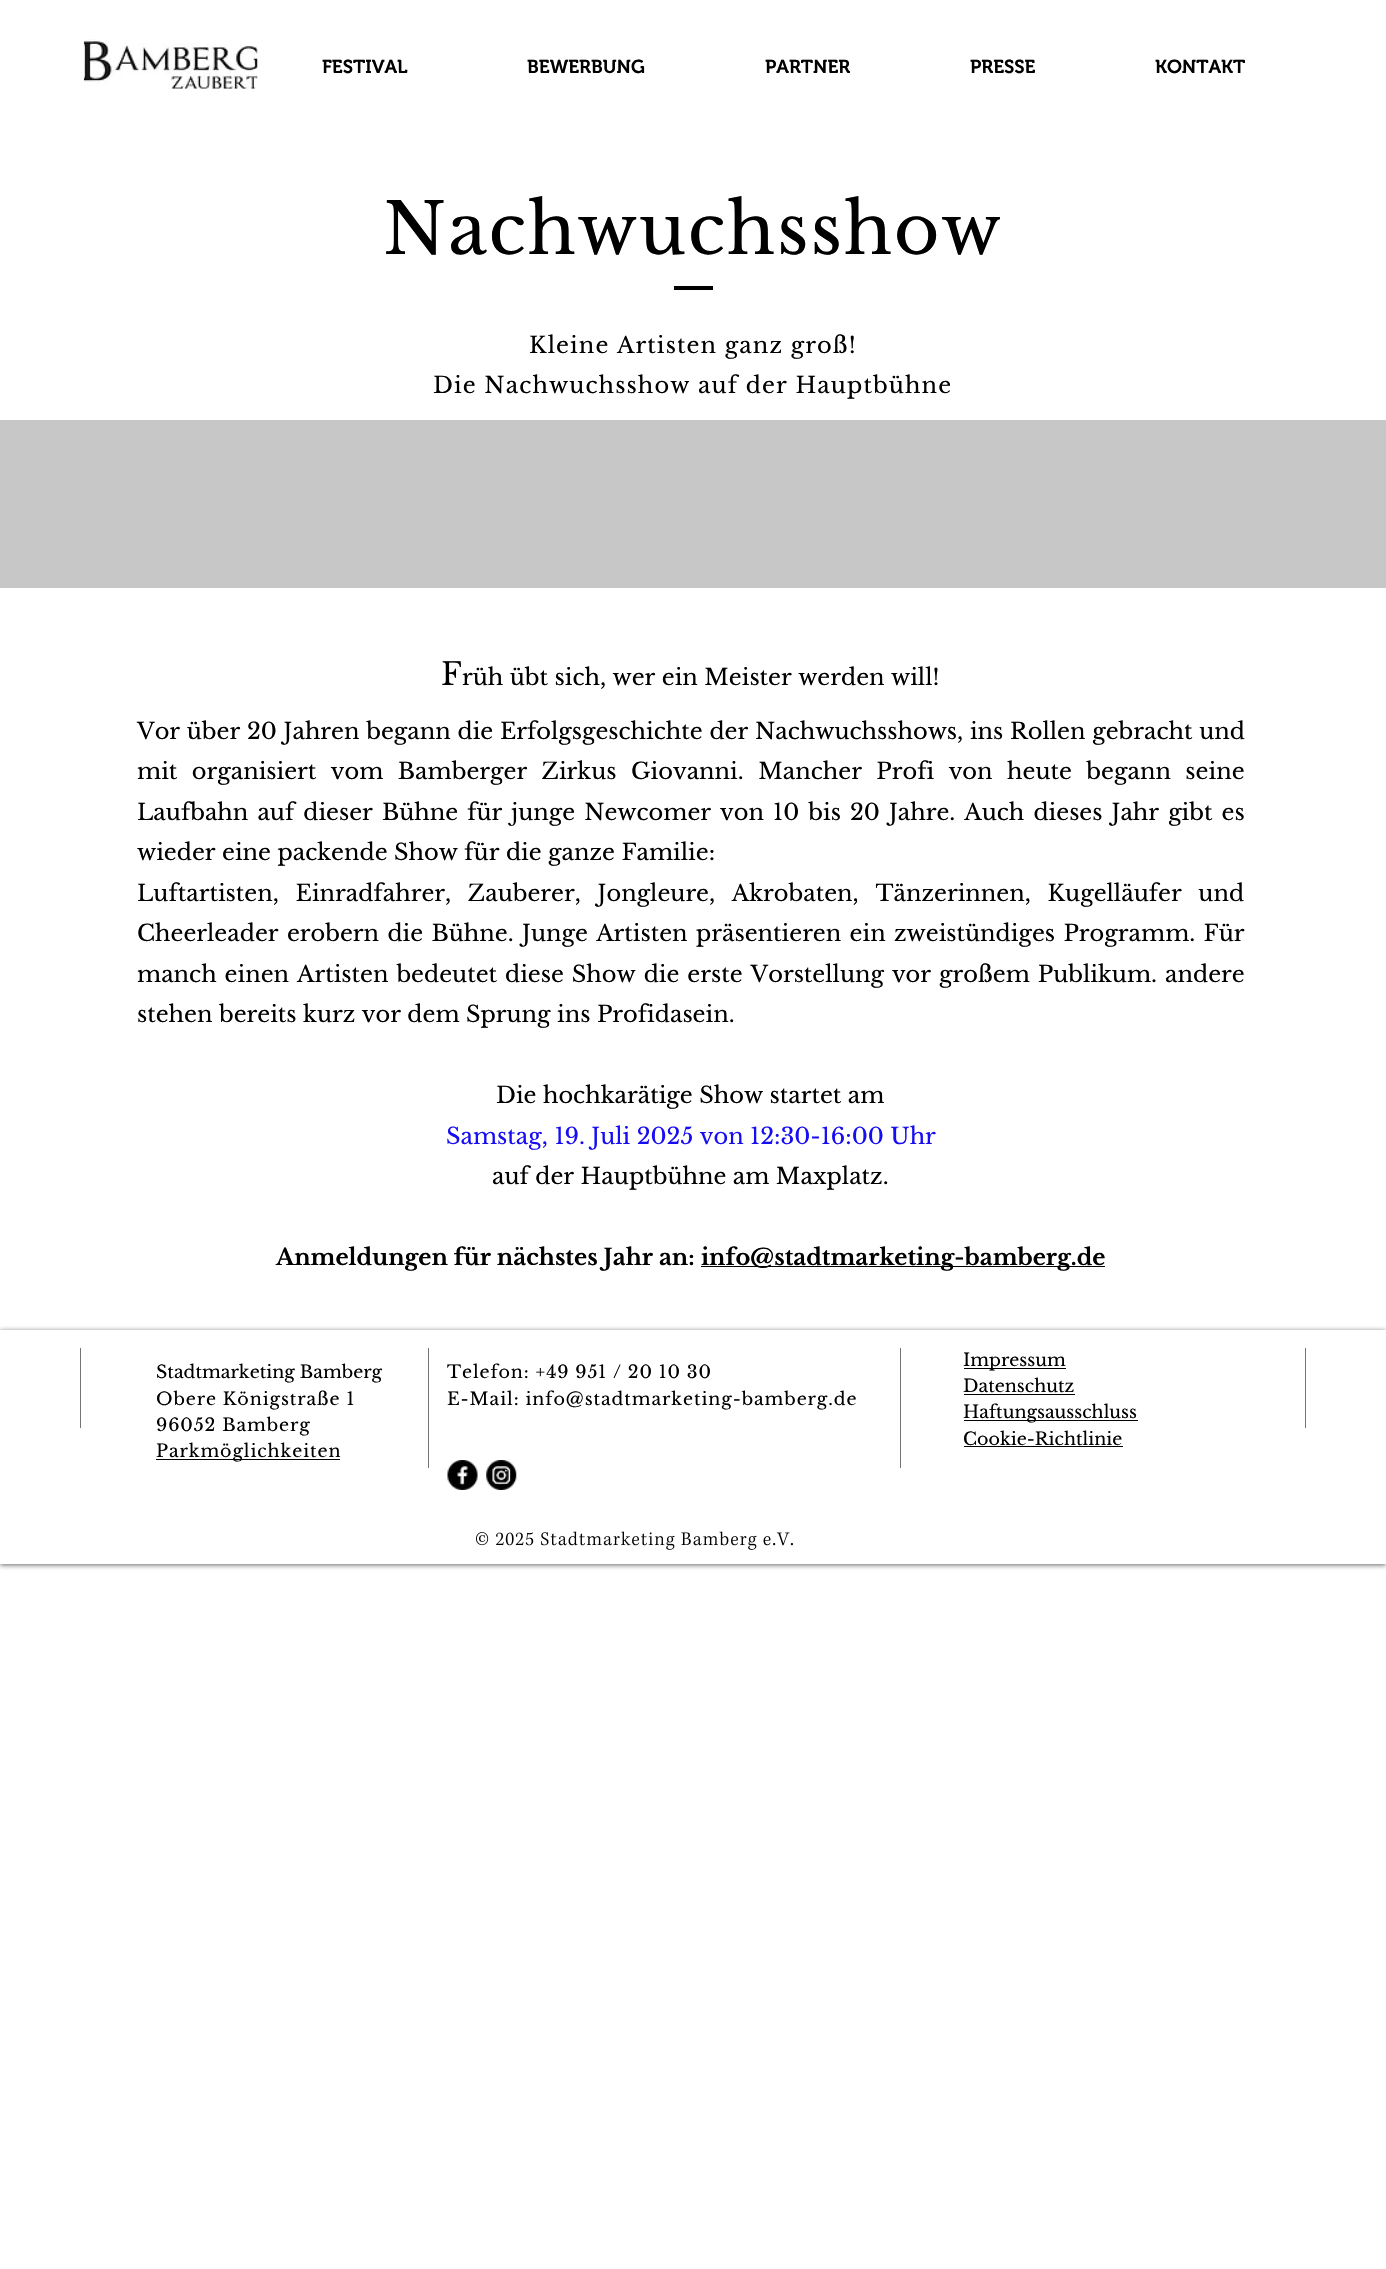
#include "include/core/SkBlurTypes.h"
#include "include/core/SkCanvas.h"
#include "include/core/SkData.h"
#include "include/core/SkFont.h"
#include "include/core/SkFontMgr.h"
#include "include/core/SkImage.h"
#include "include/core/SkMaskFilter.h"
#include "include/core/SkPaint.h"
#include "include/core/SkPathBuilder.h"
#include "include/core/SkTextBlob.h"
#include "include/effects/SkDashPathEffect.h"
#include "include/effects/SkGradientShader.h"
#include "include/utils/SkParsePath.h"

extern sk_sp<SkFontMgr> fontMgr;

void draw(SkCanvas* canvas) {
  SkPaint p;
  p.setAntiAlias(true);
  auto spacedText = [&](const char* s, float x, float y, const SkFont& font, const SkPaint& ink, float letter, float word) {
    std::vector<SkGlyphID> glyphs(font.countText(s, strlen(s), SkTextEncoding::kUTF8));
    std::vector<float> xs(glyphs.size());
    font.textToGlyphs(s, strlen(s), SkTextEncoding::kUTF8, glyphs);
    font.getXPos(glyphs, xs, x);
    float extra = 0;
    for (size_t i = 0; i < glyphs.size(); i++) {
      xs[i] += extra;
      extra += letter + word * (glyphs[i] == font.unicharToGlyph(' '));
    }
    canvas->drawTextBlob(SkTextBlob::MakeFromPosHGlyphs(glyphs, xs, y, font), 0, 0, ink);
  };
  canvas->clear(SK_ColorWHITE);
  canvas->drawImageRect(SkImages::DeferredFromEncodedData(SkData::MakeFromFileName("images/1.png")), SkRect::MakeLTRB(83, 39, 258, 89), SkSamplingOptions());
  p.setColor(SK_ColorBLACK);
  canvas->drawRect(SkRect::MakeLTRB(674, 286, 713, 290), p);
  p.setColor(SkColorSetRGB(199, 199, 199));
  canvas->drawRect(SkRect::MakeLTRB(0, 420, 1386, 588), p);
  p.setColor(SK_ColorBLACK);
  canvas->drawRect(SkRect::MakeLTRB(701, 1266, 1105, 1267), p);
  p.setColor(SkColorSetARGB(153, 0, 0, 0));
  p.setMaskFilter(SkMaskFilter::MakeBlur(kNormal_SkBlurStyle, 2.5f));
  canvas->drawRect(SkRect::MakeLTRB(0, 1331, 1386, 1565), p);
  p.setMaskFilter(nullptr);
  p.setColor(SK_ColorWHITE);
  canvas->drawRect(SkRect::MakeLTRB(0, 1330, 1386, 1564), p);
  p.setColor(SkColorSetRGB(117, 117, 117));
  canvas->drawRect(SkRect::MakeLTRB(80, 1348, 81, 1428), p);
  p.setColor(SK_ColorBLACK);
  canvas->drawRect(SkRect::MakeLTRB(156, 1459, 340, 1460), p);
  p.setColor(SkColorSetRGB(117, 117, 117));
  canvas->drawRect(SkRect::MakeLTRB(428, 1348, 429, 1468), p);
  canvas->drawRect(SkRect::MakeLTRB(900, 1348, 901, 1468), p);
  p.setColor(SK_ColorBLACK);
  canvas->drawRect(SkRect::MakeLTRB(964, 1368, 1066, 1369), p);
  canvas->drawRect(SkRect::MakeLTRB(964, 1394, 1075, 1395), p);
  canvas->drawRect(SkRect::MakeLTRB(964, 1420, 1138, 1421), p);
  canvas->drawRect(SkRect::MakeLTRB(964, 1446, 1123, 1447), p);
  p.setColor(SkColorSetRGB(117, 117, 117));
  canvas->drawRect(SkRect::MakeLTRB(1305, 1348, 1306, 1428), p);
  canvas->drawImageRect(SkImages::DeferredFromEncodedData(SkData::MakeFromFileName("images/2.png")), SkRect::MakeLTRB(447, 1460, 478, 1490), SkSamplingOptions());
  canvas->drawImageRect(SkImages::DeferredFromEncodedData(SkData::MakeFromFileName("images/3.png")), SkRect::MakeLTRB(486, 1460, 517, 1490), SkSamplingOptions());
  canvas->drawImageRect(SkImages::DeferredFromEncodedData(SkData::MakeFromFileName("images/4.png")), SkRect::MakeLTRB(476, 1531, 793, 1550), SkSamplingOptions());
  SkFont font1(fontMgr->matchFamilyStyle("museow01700", SkFontStyle(600, SkFontStyle::kNormal_Width, SkFontStyle::kUpright_Slant)), 18.75f);
  font1.setSubpixel(true);
  p.setColor(SK_ColorBLACK);
  canvas->drawString("FESTIVAL", 322, 73, font1, p);
  canvas->drawString("BEWERBUNG", 527, 73, font1, p);
  canvas->drawString("PARTNER", 765, 73, font1, p);
  canvas->drawString("PRESSE", 970, 73, font1, p);
  canvas->drawString("KONTAKT", 1155, 73, font1, p);
  SkFont font2(fontMgr->matchFamilyStyle("Libre Baskerville", SkFontStyle::Normal()), 70);
  font2.setSubpixel(true);
  spacedText("Nachwuchsshow", 383, 254, font2, p, 1.75f, 0);
  SkFont font3(fontMgr->matchFamilyStyle("Libre Baskerville", SkFontStyle::Normal()), 22.5f);
  font3.setSubpixel(true);
  spacedText("Kleine Artisten ganz groß!", 529, 353, font3, p, 1.1f, 0);
  spacedText("Die Nachwuchsshow auf der Hauptbühne", 433, 393, font3, p, 1.1f, 0);
  SkFont font4(fontMgr->matchFamilyStyle("Libre Baskerville", SkFontStyle::Normal()), 31);
  font4.setSubpixel(true);
  canvas->drawString("F", 441, 685, font4, p);
  canvas->drawString("rüh übt sich, wer ein Meister werden will!", 462, 685, font3, p);
  spacedText("Vor über 20 Jahren begann die Erfolgsgeschichte der Nachwuchsshows, ins Rollen gebracht und", 137, 739, font3, p, 0, 0.25f);
  spacedText("mit organisiert vom Bamberger Zirkus Giovanni. Mancher Profi von heute begann seine", 137, 779, font3, p, 0, 8);
  spacedText("Laufbahn auf dieser Bühne für junge Newcomer von 10 bis 20 Jahre. Auch dieses Jahr gibt es", 137, 820, font3, p, 0, 2.6f);
  canvas->drawString("wieder eine packende Show für die ganze Familie:", 137, 860, font3, p);
  spacedText("Luftartisten, Einradfahrer, Zauberer, Jongleure, Akrobaten, Tänzerinnen, Kugelläufer und", 137, 901, font3, p, 0, 10.25f);
  spacedText("Cheerleader erobern die Bühne. Junge Artisten präsentieren ein zweistündiges Programm. Für", 137, 941, font3, p, 0, 1.9f);
  spacedText("manch einen Artisten bedeutet diese Show die erste Vorstellung vor großem Publikum. andere", 137, 982, font3, p, 0, 1.5f);
  canvas->drawString("stehen bereits kurz vor dem Sprung ins Profidasein.", 137, 1022, font3, p);
  canvas->drawString("Die hochkarätige Show startet am", 496, 1103, font3, p);
  p.setColor(SkColorSetRGB(23, 13, 242));
  canvas->drawString("Samstag, 19. Juli 2025 von 12:30-16:00 Uhr", 446, 1144, font3, p);
  p.setColor(SK_ColorBLACK);
  canvas->drawString("auf der Hauptbühne am Maxplatz.", 492, 1184, font3, p);
  SkFont font5(fontMgr->matchFamilyStyle("Libre Baskerville", SkFontStyle::Bold()), 22.5f);
  font5.setSubpixel(true);
  canvas->drawString("Anmeldungen für nächstes Jahr an:", 276, 1265, font5, p);
  canvas->drawString("info@stadtmarketing-bamberg.de", 701, 1265, font5, p);
  SkFont font6(fontMgr->matchFamilyStyle("Libre Baskerville", SkFontStyle::Normal()), 17.5f);
  font6.setSubpixel(true);
  canvas->drawString("Stadtmarketing Bamberg", 156, 1378, font6, p);
  spacedText("Obere Königstraße 1", 156, 1405, font6, p, 0.9f, 0);
  spacedText("96052 Bamberg", 156, 1431, font6, p, 0.9f, 0);
  spacedText("Parkmöglichkeiten", 156, 1457, font6, p, 0.9f, 0);
  spacedText("Telefon: +49 951 / 20 10 30", 447, 1378, font6, p, 0.9f, 0);
  spacedText("E-Mail: info@stadtmarketing-bamberg.de", 447, 1405, font6, p, 0.9f, 0);
  canvas->drawString("Impressum", 963, 1366, font6, p);
  canvas->drawString("Datenschutz", 963, 1392, font6, p);
  canvas->drawString("Haftungsausschluss", 963, 1418, font6, p);
  canvas->drawString("Cookie-Richtlinie", 963, 1445, font6, p);
}
